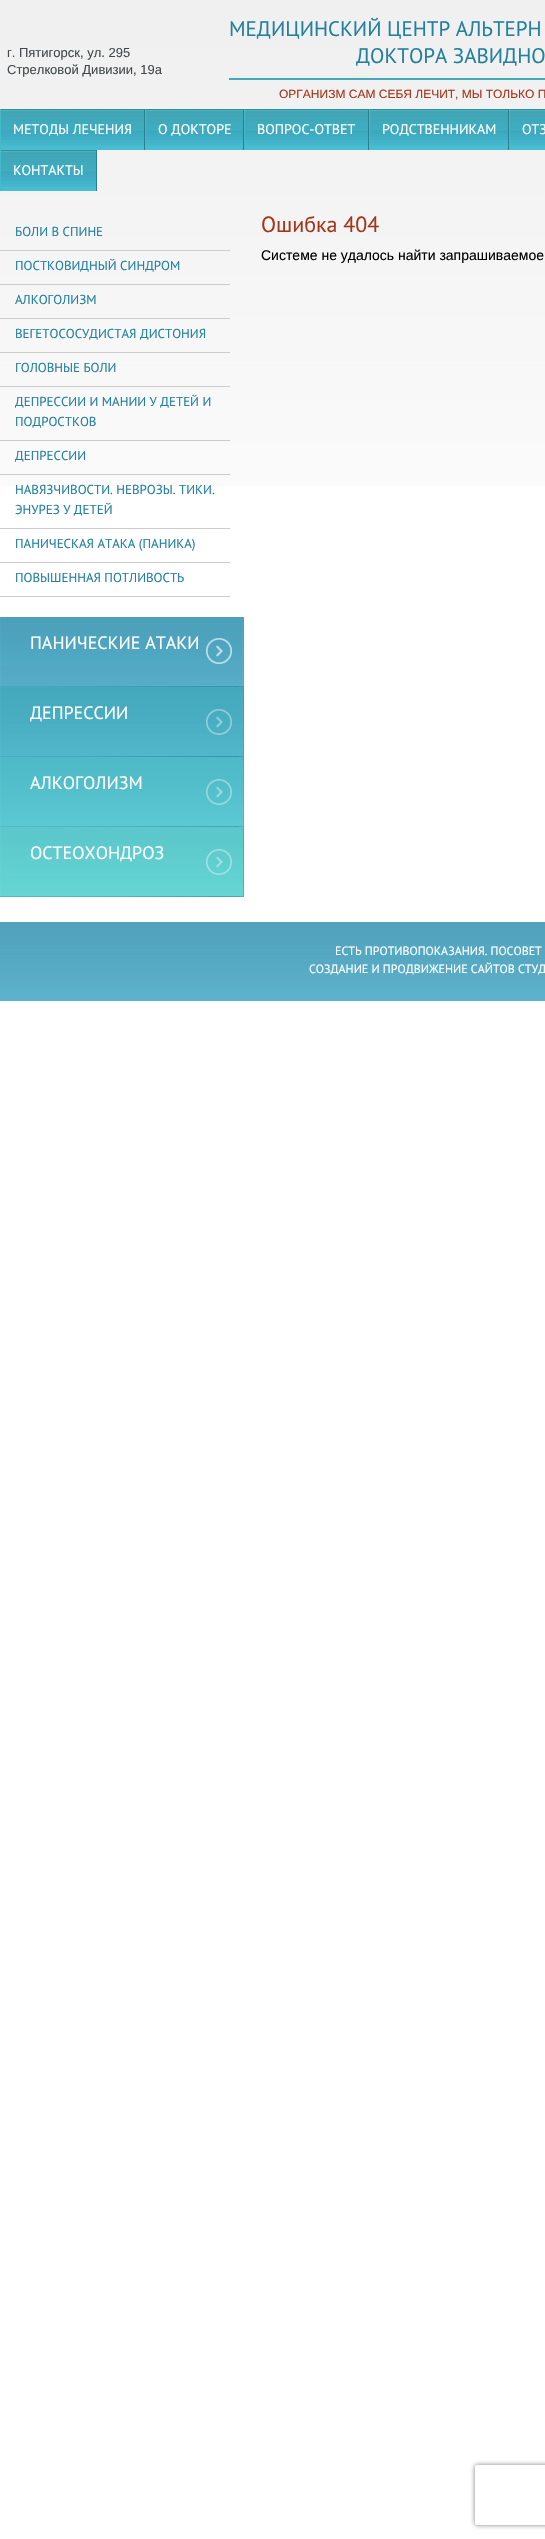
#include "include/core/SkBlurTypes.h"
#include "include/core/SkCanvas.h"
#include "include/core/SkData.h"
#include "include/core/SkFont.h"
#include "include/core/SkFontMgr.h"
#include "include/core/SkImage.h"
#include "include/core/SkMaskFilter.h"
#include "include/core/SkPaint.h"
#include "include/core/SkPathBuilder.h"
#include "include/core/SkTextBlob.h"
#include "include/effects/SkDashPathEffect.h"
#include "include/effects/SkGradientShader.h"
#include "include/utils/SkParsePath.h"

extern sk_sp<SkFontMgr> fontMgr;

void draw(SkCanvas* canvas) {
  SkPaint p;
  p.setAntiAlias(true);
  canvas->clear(SK_ColorWHITE);
  canvas->drawImageRect(SkImages::DeferredFromEncodedData(SkData::MakeFromFileName("images/1.png")), SkRect::MakeLTRB(0, 0, 545, 486), SkSamplingOptions());
  p.setColor(SkColorSetRGB(66, 167, 183));
  canvas->drawRect(SkRect::MakeLTRB(229, 78, 545, 80), p);
  canvas->drawImageRect(SkImages::DeferredFromEncodedData(SkData::MakeFromFileName("images/2.png")), SkRect::MakeLTRB(1, 109, 545, 150), SkSamplingOptions());
  p.setColor(SkColorSetRGB(42, 126, 142));
  canvas->drawRect(SkRect::MakeLTRB(144, 109, 145, 150), p);
  p.setColor(SkColorSetRGB(68, 185, 199));
  canvas->drawRect(SkRect::MakeLTRB(0, 109, 1, 191), p);
  p.setColor(SkColorSetRGB(42, 126, 142));
  canvas->drawRect(SkRect::MakeLTRB(243, 109, 244, 150), p);
  p.setColor(SkColorSetRGB(68, 185, 199));
  canvas->drawRect(SkRect::MakeLTRB(145, 109, 146, 150), p);
  p.setColor(SkColorSetRGB(42, 126, 142));
  canvas->drawRect(SkRect::MakeLTRB(368, 109, 369, 150), p);
  p.setColor(SkColorSetRGB(68, 185, 199));
  canvas->drawRect(SkRect::MakeLTRB(244, 109, 245, 150), p);
  p.setColor(SkColorSetRGB(42, 126, 142));
  canvas->drawRect(SkRect::MakeLTRB(508, 109, 509, 150), p);
  p.setColor(SkColorSetRGB(68, 185, 199));
  canvas->drawRect(SkRect::MakeLTRB(369, 109, 370, 150), p);
  canvas->drawRect(SkRect::MakeLTRB(509, 109, 510, 150), p);
  p.setColor(SkColorSetRGB(42, 126, 142));
  canvas->drawRect(SkRect::MakeLTRB(96, 150, 97, 191), p);
  canvas->drawImageRect(SkImages::DeferredFromEncodedData(SkData::MakeFromFileName("images/3.png")), SkRect::MakeLTRB(1, 150, 96, 191), SkSamplingOptions());
  p.setColor(SkColorSetRGB(204, 204, 204));
  canvas->drawRect(SkRect::MakeLTRB(0, 250, 230, 251), p);
  canvas->drawRect(SkRect::MakeLTRB(0, 284, 230, 285), p);
  canvas->drawRect(SkRect::MakeLTRB(0, 318, 230, 319), p);
  canvas->drawRect(SkRect::MakeLTRB(0, 352, 230, 353), p);
  canvas->drawRect(SkRect::MakeLTRB(0, 386, 230, 387), p);
  canvas->drawRect(SkRect::MakeLTRB(0, 440, 230, 441), p);
  canvas->drawRect(SkRect::MakeLTRB(0, 474, 230, 475), p);
  canvas->drawRect(SkRect::MakeLTRB(0, 528, 230, 529), p);
  canvas->drawRect(SkRect::MakeLTRB(0, 562, 230, 563), p);
  canvas->drawRect(SkRect::MakeLTRB(0, 596, 230, 597), p);
  canvas->drawImageRect(SkImages::DeferredFromEncodedData(SkData::MakeFromFileName("images/4.png")), SkRect::MakeLTRB(0, 617, 244, 687), SkSamplingOptions());
  canvas->drawImageRect(SkImages::DeferredFromEncodedData(SkData::MakeFromFileName("images/5.png")), SkRect::MakeLTRB(0, 687, 244, 757), SkSamplingOptions());
  canvas->drawImageRect(SkImages::DeferredFromEncodedData(SkData::MakeFromFileName("images/6.png")), SkRect::MakeLTRB(0, 757, 244, 827), SkSamplingOptions());
  canvas->drawImageRect(SkImages::DeferredFromEncodedData(SkData::MakeFromFileName("images/7.png")), SkRect::MakeLTRB(0, 827, 244, 897), SkSamplingOptions());
  canvas->drawImageRect(SkImages::DeferredFromEncodedData(SkData::MakeFromFileName("images/8.png")), SkRect::MakeLTRB(0, 922, 545, 1001), SkSamplingOptions());
  canvas->save();
  canvas->clipPath(SkPathBuilder(SkPathFillType::kEvenOdd).moveTo(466, 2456).lineTo(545, 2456).lineTo(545, 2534).lineTo(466, 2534).close().moveTo(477, 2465).lineTo(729, 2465).cubicTo(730, 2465, 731, 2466, 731, 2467).lineTo(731, 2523).cubicTo(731, 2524, 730, 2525, 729, 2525).lineTo(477, 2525).cubicTo(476, 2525, 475, 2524, 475, 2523).lineTo(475, 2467).cubicTo(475, 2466, 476, 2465, 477, 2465).close().detach(), true);
  p.setColor(SkColorSetRGB(128, 128, 128));
  p.setMaskFilter(SkMaskFilter::MakeBlur(kNormal_SkBlurStyle, 2.5f));
  canvas->drawRoundRect(SkRect::MakeLTRB(475, 2465, 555, 2525), 2, 2, p);
  p.setMaskFilter(nullptr);
  canvas->restore();
  SkFont font1(fontMgr->matchFamilyStyle("Liberation Sans", SkFontStyle::Normal()), 13);
  font1.setSubpixel(true);
  p.setColor(SkColorSetRGB(66, 72, 75));
  canvas->drawString("г. Пятигорск, ул. 295", 7, 57, font1, p);
  canvas->drawString("Стрелковой Дивизии, 19а", 7, 74, font1, p);
  SkFont font2(fontMgr->matchFamilyStyle("PT Sans", SkFontStyle::Normal()), 21);
  font2.setSubpixel(true);
  p.setColor(SkColorSetRGB(35, 128, 159));
  canvas->drawString("МЕДИЦИНСКИЙ ЦЕНТР АЛЬТЕРН", 229, 36, font2, p);
  canvas->drawString("ДОКТОРА ЗАВИДНО", 356, 63, font2, p);
  SkFont font3(fontMgr->matchFamilyStyle("Liberation Sans", SkFontStyle::Normal()), 12);
  font3.setSubpixel(true);
  p.setColor(SkColorSetRGB(164, 53, 26));
  canvas->drawString("ОРГАНИЗМ САМ СЕБЯ ЛЕЧИТ, МЫ ТОЛЬКО П", 279, 98, font3, p);
  SkFont font4(fontMgr->matchFamilyStyle("PT Sans", SkFontStyle::Normal()), 14);
  font4.setSubpixel(true);
  p.setColor(SK_ColorWHITE);
  canvas->drawString("МЕТОДЫ ЛЕЧЕНИЯ", 13, 134, font4, p);
  canvas->drawString("О ДОКТОРЕ", 158, 134, font4, p);
  canvas->drawString("ВОПРОС-ОТВЕТ", 257, 134, font4, p);
  canvas->drawString("РОДСТВЕННИКАМ", 382, 134, font4, p);
  canvas->drawString("ОТЗ", 522, 134, font4, p);
  canvas->drawString("КОНТАКТЫ", 13, 175, font4, p);
  SkFont font5(fontMgr->matchFamilyStyle("PT Sans", SkFontStyle::Normal()), 13);
  font5.setSubpixel(true);
  p.setColor(SkColorSetRGB(35, 128, 159));
  canvas->drawString("БОЛИ В СПИНЕ", 15, 236, font5, p);
  canvas->drawString("ПОСТКОВИДНЫЙ СИНДРОМ", 15, 270, font5, p);
  canvas->drawString("АЛКОГОЛИЗМ", 15, 304, font5, p);
  canvas->drawString("ВЕГЕТОСОСУДИСТАЯ ДИСТОНИЯ", 15, 338, font5, p);
  canvas->drawString("ГОЛОВНЫЕ БОЛИ", 15, 372, font5, p);
  canvas->drawString("ДЕПРЕССИИ И МАНИИ У ДЕТЕЙ И", 15, 406, font5, p);
  canvas->drawString("ПОДРОСТКОВ", 15, 426, font5, p);
  canvas->drawString("ДЕПРЕССИИ", 15, 460, font5, p);
  canvas->drawString("НАВЯЗЧИВОСТИ. НЕВРОЗЫ. ТИКИ.", 15, 494, font5, p);
  canvas->drawString("ЭНУРЕЗ У ДЕТЕЙ", 15, 514, font5, p);
  canvas->drawString("ПАНИЧЕСКАЯ АТАКА (ПАНИКА)", 15, 548, font5, p);
  canvas->drawString("ПОВЫШЕННАЯ ПОТЛИВОСТЬ", 15, 582, font5, p);
  SkFont font6(fontMgr->matchFamilyStyle("PT Sans", SkFontStyle::Normal()), 18);
  font6.setSubpixel(true);
  p.setColor(SK_ColorWHITE);
  canvas->drawString("ПАНИЧЕСКИЕ АТАКИ", 30, 649, font6, p);
  canvas->drawString("ДЕПРЕССИИ", 30, 719, font6, p);
  canvas->drawString("АЛКОГОЛИЗМ", 30, 789, font6, p);
  canvas->drawString("ОСТЕОХОНДРОЗ", 30, 859, font6, p);
  SkFont font7(fontMgr->matchFamilyStyle("PT Sans", SkFontStyle::Normal()), 22);
  font7.setSubpixel(true);
  p.setColor(SkColorSetRGB(164, 53, 26));
  canvas->drawString("Ошибка 404", 261, 232, font7, p);
  SkFont font8(fontMgr->matchFamilyStyle("Liberation Sans", SkFontStyle::Normal()), 14);
  font8.setSubpixel(true);
  p.setColor(SK_ColorBLACK);
  canvas->drawString("Системе не удалось найти запрашиваемое", 261, 260, font8, p);
  SkFont font9(fontMgr->matchFamilyStyle("PT Sans", SkFontStyle::Normal()), 12);
  font9.setSubpixel(true);
  p.setColor(SK_ColorWHITE);
  canvas->drawString("ЕСТЬ ПРОТИВОПОКАЗАНИЯ. ПОСОВЕТ", 335, 955, font9, p);
  canvas->drawString("СОЗДАНИЕ И ПРОДВИЖЕНИЕ САЙТОВ СТУД", 309, 973, font9, p);
}
